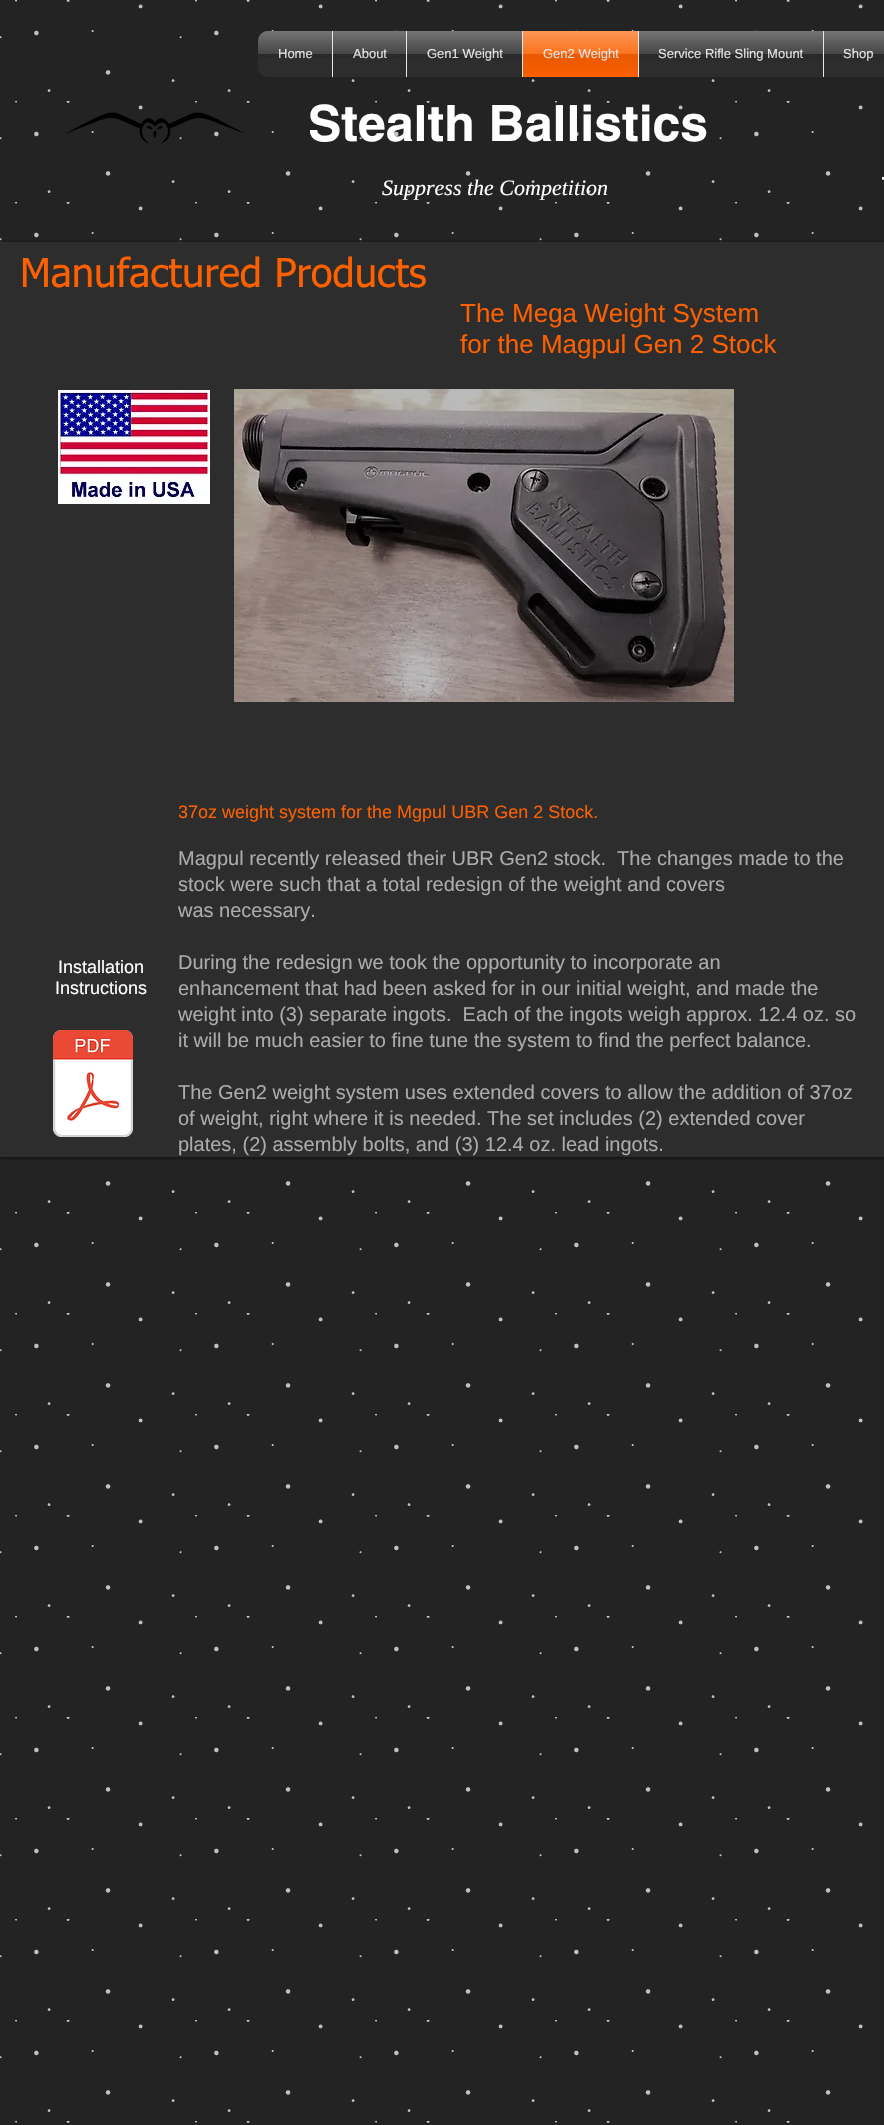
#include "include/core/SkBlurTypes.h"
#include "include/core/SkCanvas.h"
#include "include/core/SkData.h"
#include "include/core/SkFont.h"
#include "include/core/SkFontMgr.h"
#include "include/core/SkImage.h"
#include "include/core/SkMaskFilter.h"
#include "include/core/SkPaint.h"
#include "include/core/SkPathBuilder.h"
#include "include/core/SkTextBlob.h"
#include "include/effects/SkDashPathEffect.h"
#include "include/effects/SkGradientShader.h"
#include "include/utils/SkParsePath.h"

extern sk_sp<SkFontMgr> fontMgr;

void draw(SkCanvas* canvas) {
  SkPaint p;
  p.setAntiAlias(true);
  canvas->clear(SkColorSetRGB(35, 35, 35));
  canvas->drawImageRect(SkImages::DeferredFromEncodedData(SkData::MakeFromFileName("images/1.png")), SkRect::MakeLTRB(0, 0, 863, 2123), SkSamplingOptions());
  canvas->drawImageRect(SkImages::DeferredFromEncodedData(SkData::MakeFromFileName("images/2.png")), SkRect::MakeLTRB(258, 31, 268, 41), SkSamplingOptions());
  p.setColor(SkColorSetRGB(45, 45, 45));
  canvas->drawPath(SkPathBuilder().moveTo(268, 31).lineTo(332, 31).lineTo(332, 77).lineTo(268, 77).cubicTo(262.5f, 77, 258, 72.5f, 258, 67).lineTo(258, 41).cubicTo(258, 35.5f, 262.5f, 31, 268, 31).close().detach(), p);
  canvas->drawRect(SkRect::MakeLTRB(333, 31, 406, 77), p);
  p.setColor(SkColorSetRGB(232, 232, 232));
  canvas->drawRect(SkRect::MakeLTRB(332, 31, 333, 77), p);
  p.setColor(SkColorSetRGB(45, 45, 45));
  canvas->drawRect(SkRect::MakeLTRB(407, 31, 522, 77), p);
  p.setColor(SkColorSetRGB(232, 232, 232));
  canvas->drawRect(SkRect::MakeLTRB(406, 31, 407, 77), p);
  p.setColor(SkColorSetRGB(252, 96, 0));
  canvas->drawRect(SkRect::MakeLTRB(523, 31, 638, 77), p);
  p.setColor(SkColorSetRGB(232, 232, 232));
  canvas->drawRect(SkRect::MakeLTRB(522, 31, 523, 77), p);
  p.setColor(SkColorSetRGB(45, 45, 45));
  canvas->drawRect(SkRect::MakeLTRB(639, 31, 823, 77), p);
  p.setColor(SkColorSetRGB(232, 232, 232));
  canvas->drawRect(SkRect::MakeLTRB(638, 31, 639, 77), p);
  p.setColor(SkColorSetRGB(45, 45, 45));
  canvas->drawRect(SkRect::MakeLTRB(824, 31, 884, 77), p);
  p.setColor(SkColorSetRGB(232, 232, 232));
  canvas->drawRect(SkRect::MakeLTRB(823, 31, 824, 77), p);
  canvas->drawImageRect(SkImages::DeferredFromEncodedData(SkData::MakeFromFileName("images/9.png")), SkRect::MakeLTRB(65, 112, 245, 144), SkSamplingOptions());
  canvas->drawImageRect(SkImages::DeferredFromEncodedData(SkData::MakeFromFileName("images/10.png")), SkRect::MakeLTRB(882, 177, 884, 180), SkSamplingOptions());
  p.setColor(SkColorSetARGB(153, 0, 0, 0));
  p.setMaskFilter(SkMaskFilter::MakeBlur(kNormal_SkBlurStyle, 2));
  canvas->drawRect(SkRect::MakeLTRB(0, 243, 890, 1158), p);
  p.setMaskFilter(nullptr);
  p.setColor(SkColorSetRGB(45, 45, 45));
  canvas->drawRect(SkRect::MakeLTRB(0, 242, 884, 1157), p);
  canvas->drawImageRect(SkImages::DeferredFromEncodedData(SkData::MakeFromFileName("images/11.png")), SkRect::MakeLTRB(58, 390, 210, 504), SkSamplingOptions());
  canvas->drawImageRect(SkImages::DeferredFromEncodedData(SkData::MakeFromFileName("images/12.png")), SkRect::MakeLTRB(234, 389, 734, 702), SkSamplingOptions());
  canvas->drawImageRect(SkImages::DeferredFromEncodedData(SkData::MakeFromFileName("images/13.png")), SkRect::MakeLTRB(53, 1030, 133, 1137), SkSamplingOptions());
  SkFont font1(fontMgr->matchFamilyStyle("Liberation Sans", SkFontStyle::Normal()), 13);
  font1.setSubpixel(true);
  p.setColor(SkColorSetRGB(232, 232, 232));
  canvas->drawString("Home", 278, 58, font1, p);
  canvas->drawImageRect(SkImages::DeferredFromEncodedData(SkData::MakeFromFileName("images/3.png")), SkRect::MakeLTRB(258, 31, 332, 58), SkSamplingOptions());
  canvas->drawString("About", 353, 58, font1, p);
  canvas->drawImageRect(SkImages::DeferredFromEncodedData(SkData::MakeFromFileName("images/4.png")), SkRect::MakeLTRB(333, 31, 406, 58), SkSamplingOptions());
  canvas->drawString("Gen1 Weight", 427, 58, font1, p);
  canvas->drawImageRect(SkImages::DeferredFromEncodedData(SkData::MakeFromFileName("images/5.png")), SkRect::MakeLTRB(407, 31, 522, 61), SkSamplingOptions());
  canvas->drawString("Gen2 Weight", 543, 58, font1, p);
  canvas->drawImageRect(SkImages::DeferredFromEncodedData(SkData::MakeFromFileName("images/6.png")), SkRect::MakeLTRB(523, 31, 638, 75), SkSamplingOptions());
  canvas->drawString("Service Rifle Sling Mount", 658, 58, font1, p);
  canvas->drawImageRect(SkImages::DeferredFromEncodedData(SkData::MakeFromFileName("images/7.png")), SkRect::MakeLTRB(639, 31, 823, 61), SkSamplingOptions());
  canvas->drawString("Shop", 843, 58, font1, p);
  canvas->drawImageRect(SkImages::DeferredFromEncodedData(SkData::MakeFromFileName("images/8.png")), SkRect::MakeLTRB(824, 31, 884, 61), SkSamplingOptions());
  SkFont font2(fontMgr->matchFamilyStyle("helvetica", SkFontStyle::Bold()), 50);
  font2.setSubpixel(true);
  p.setColor(SK_ColorWHITE);
  canvas->drawString("Stealth Ballistics", 308, 141, font2, p);
  SkFont font3(fontMgr->matchFamilyStyle("Liberation Serif", SkFontStyle::Italic()), 22);
  font3.setSubpixel(true);
  canvas->drawString("Suppress the Competition", 382, 195, font3, p);
  SkFont font4(fontMgr->matchFamilyStyle("tahoma", SkFontStyle::Normal()), 40);
  font4.setSubpixel(true);
  p.setColor(SkColorSetRGB(252, 96, 0));
  canvas->drawString("Manufactured Products", 20, 287, font4, p);
  SkFont font5(fontMgr->matchFamilyStyle("Liberation Sans", SkFontStyle::Normal()), 26);
  font5.setSubpixel(true);
  canvas->drawString("The Mega Weight System", 460, 322, font5, p);
  canvas->drawString("for the Magpul Gen 2 Stock", 460, 353, font5, p);
  SkFont font6(fontMgr->matchFamilyStyle("Liberation Sans", SkFontStyle::Normal()), 18);
  font6.setSubpixel(true);
  p.setColor(SK_ColorWHITE);
  canvas->drawString("Installation", 58, 973, font6, p);
  canvas->drawString("Instructions", 55, 994, font6, p);
  p.setColor(SkColorSetRGB(252, 96, 0));
  canvas->drawString("37oz weight system for the Mgpul UBR Gen 2 Stock.", 178, 818, font6, p);
  SkFont font7(fontMgr->matchFamilyStyle("Liberation Sans", SkFontStyle::Normal()), 20);
  font7.setSubpixel(true);
  p.setColor(SkColorSetRGB(171, 171, 171));
  canvas->drawString("Magpul recently released their UBR Gen2 stock.  The changes made to the", 178, 865, font7, p);
  canvas->drawString("stock were such that a total redesign of the weight and covers", 178, 891, font7, p);
  canvas->drawString("was necessary.", 178, 917, font7, p);
  canvas->drawString("During the redesign we took the opportunity to incorporate an", 178, 969, font7, p);
  canvas->drawString("enhancement that had been asked for in our initial weight, and made the", 178, 995, font7, p);
  canvas->drawString("weight into (3) separate ingots.  Each of the ingots weigh approx. 12.4 oz. so", 178, 1021, font7, p);
  canvas->drawString("it will be much easier to fine tune the system to find the perfect balance.", 178, 1047, font7, p);
  canvas->drawString("The Gen2 weight system uses extended covers to allow the addition of 37oz", 178, 1099, font7, p);
  canvas->drawString("of weight, right where it is needed. The set includes (2) extended cover", 178, 1125, font7, p);
  canvas->drawString("plates, (2) assembly bolts, and (3) 12.4 oz. lead ingots.", 178, 1151, font7, p);
}
